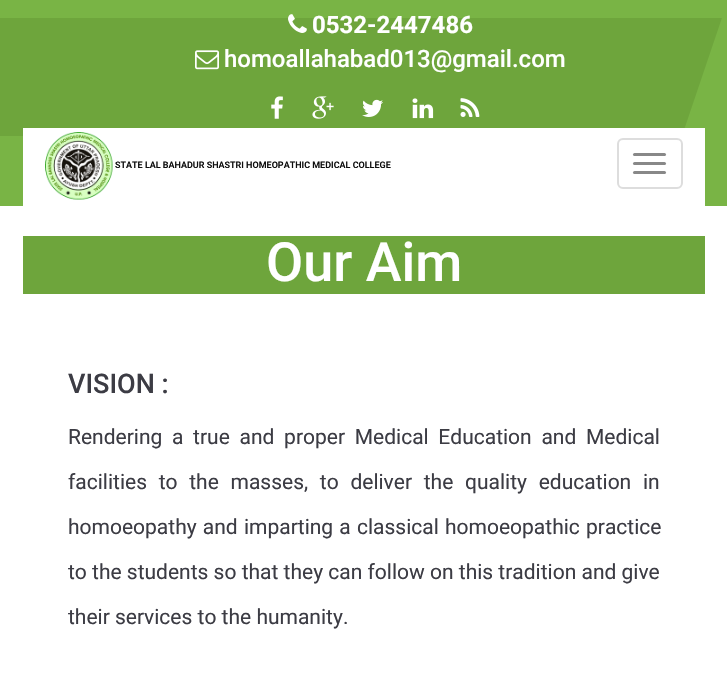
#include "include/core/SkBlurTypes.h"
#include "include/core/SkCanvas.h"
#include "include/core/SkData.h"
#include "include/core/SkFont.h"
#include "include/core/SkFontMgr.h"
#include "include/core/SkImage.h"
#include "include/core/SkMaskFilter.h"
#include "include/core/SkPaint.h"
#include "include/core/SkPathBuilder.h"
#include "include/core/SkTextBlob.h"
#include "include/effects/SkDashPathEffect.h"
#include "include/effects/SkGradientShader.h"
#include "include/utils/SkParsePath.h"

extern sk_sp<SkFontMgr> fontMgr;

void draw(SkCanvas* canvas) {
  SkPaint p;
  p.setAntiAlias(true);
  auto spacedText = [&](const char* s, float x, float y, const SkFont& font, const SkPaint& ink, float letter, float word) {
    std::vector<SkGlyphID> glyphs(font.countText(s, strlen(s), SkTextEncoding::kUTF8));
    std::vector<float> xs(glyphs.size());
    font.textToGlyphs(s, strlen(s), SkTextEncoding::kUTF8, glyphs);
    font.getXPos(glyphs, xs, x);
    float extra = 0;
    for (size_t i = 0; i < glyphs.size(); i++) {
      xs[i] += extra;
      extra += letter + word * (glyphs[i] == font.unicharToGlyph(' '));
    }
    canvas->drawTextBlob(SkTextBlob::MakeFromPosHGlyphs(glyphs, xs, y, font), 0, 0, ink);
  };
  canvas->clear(SK_ColorWHITE);
  p.setColor(SkColorSetRGB(121, 180, 69));
  canvas->drawRect(SkRect::MakeLTRB(0, 18, 727, 206), p);
  p.setColor(SkColorSetRGB(110, 165, 60));
  canvas->drawPath(SkPathBuilder().moveTo(0, 0).lineTo(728, 0).lineTo(682, 136).lineTo(0, 136).close().detach(), p);
  p.setColor(SkColorSetRGB(121, 180, 69));
  canvas->drawRect(SkRect::MakeLTRB(0, 0, 727, 18), p);
  canvas->drawImageRect(SkImages::DeferredFromEncodedData(SkData::MakeFromFileName("images/1.png")), SkRect::MakeLTRB(288, 14, 307, 33), SkSamplingOptions());
  canvas->drawImageRect(SkImages::DeferredFromEncodedData(SkData::MakeFromFileName("images/2.png")), SkRect::MakeLTRB(195, 50, 219, 70), SkSamplingOptions());
  canvas->drawImageRect(SkImages::DeferredFromEncodedData(SkData::MakeFromFileName("images/3.png")), SkRect::MakeLTRB(271, 96, 283, 119), SkSamplingOptions());
  canvas->drawImageRect(SkImages::DeferredFromEncodedData(SkData::MakeFromFileName("images/4.png")), SkRect::MakeLTRB(312, 96, 334, 119), SkSamplingOptions());
  canvas->drawImageRect(SkImages::DeferredFromEncodedData(SkData::MakeFromFileName("images/5.png")), SkRect::MakeLTRB(362, 99, 383, 117), SkSamplingOptions());
  canvas->drawImageRect(SkImages::DeferredFromEncodedData(SkData::MakeFromFileName("images/6.png")), SkRect::MakeLTRB(412, 98, 434, 119), SkSamplingOptions());
  canvas->drawImageRect(SkImages::DeferredFromEncodedData(SkData::MakeFromFileName("images/7.png")), SkRect::MakeLTRB(460, 98, 480, 117), SkSamplingOptions());
  p.setColor(SK_ColorWHITE);
  canvas->drawRect(SkRect::MakeLTRB(23, 128, 705, 206), p);
  canvas->drawImageRect(SkImages::DeferredFromEncodedData(SkData::MakeFromFileName("images/8.png")), SkRect::MakeLTRB(45, 132, 113, 200), SkSamplingOptions());
  p.setStyle(SkPaint::kStroke_Style);
  p.setStrokeWidth(2);
  p.setColor(SkColorSetRGB(221, 221, 221));
  canvas->drawRoundRect(SkRect::MakeLTRB(618, 139, 682, 188), 5, 5, p);
  p.setStyle(SkPaint::kFill_Style);
  p.setColor(SkColorSetRGB(136, 136, 136));
  canvas->drawRoundRect(SkRect::MakeLTRB(633, 153, 666, 156), 1.5f, 1.5f, p);
  canvas->drawRoundRect(SkRect::MakeLTRB(633, 162, 666, 165), 1.5f, 1.5f, p);
  canvas->drawRoundRect(SkRect::MakeLTRB(633, 171, 666, 174), 1.5f, 1.5f, p);
  p.setColor(SkColorSetRGB(110, 165, 60));
  canvas->drawRect(SkRect::MakeLTRB(23, 236, 705, 294), p);
  SkFont font1(fontMgr->matchFamilyStyle("Roboto", SkFontStyle::Bold()), 24);
  font1.setSubpixel(true);
  p.setColor(SK_ColorWHITE);
  canvas->drawString("0532-2447486", 312, 33, font1, p);
  SkFont font2(fontMgr->matchFamilyStyle("Roboto", SkFontStyle(500, SkFontStyle::kNormal_Width, SkFontStyle::kUpright_Slant)), 24);
  font2.setSubpixel(true);
  canvas->drawString("homoallahabad013@gmail.com", 224, 67, font2, p);
  SkFont font3(fontMgr->matchFamilyStyle("Roboto", SkFontStyle(600, SkFontStyle::kNormal_Width, SkFontStyle::kUpright_Slant)), 9);
  font3.setSubpixel(true);
  p.setColor(SkColorSetRGB(14, 14, 14));
  canvas->drawString("STATE LAL BAHADUR SHASTRI HOMEOPATHIC MEDICAL COLLEGE", 115, 168, font3, p);
  SkFont font4(fontMgr->matchFamilyStyle("Roboto", SkFontStyle(500, SkFontStyle::kNormal_Width, SkFontStyle::kUpright_Slant)), 54);
  font4.setSubpixel(true);
  p.setColor(SK_ColorWHITE);
  canvas->drawString("Our Aim", 266, 281, font4, p);
  SkFont font5(fontMgr->matchFamilyStyle("Roboto", SkFontStyle(500, SkFontStyle::kNormal_Width, SkFontStyle::kUpright_Slant)), 27);
  font5.setSubpixel(true);
  p.setColor(SkColorSetRGB(60, 60, 68));
  canvas->drawString("VISION :", 68, 393, font5, p);
  SkFont font6(fontMgr->matchFamilyStyle("Roboto", SkFontStyle::Normal()), 21);
  font6.setSubpixel(true);
  spacedText("Rendering a true and proper Medical Education and Medical", 68, 444, font6, p, 0, 4.5f);
  spacedText("facilities to the masses, to deliver the quality education in", 68, 489, font6, p, 0, 6.5f);
  spacedText("homoeopathy and imparting a classical homoeopathic practice", 68, 534, font6, p, 0, 1);
  canvas->drawString("to the students so that they can follow on this tradition and give", 68, 579, font6, p);
  canvas->drawString("their services to the humanity.", 68, 624, font6, p);
}
